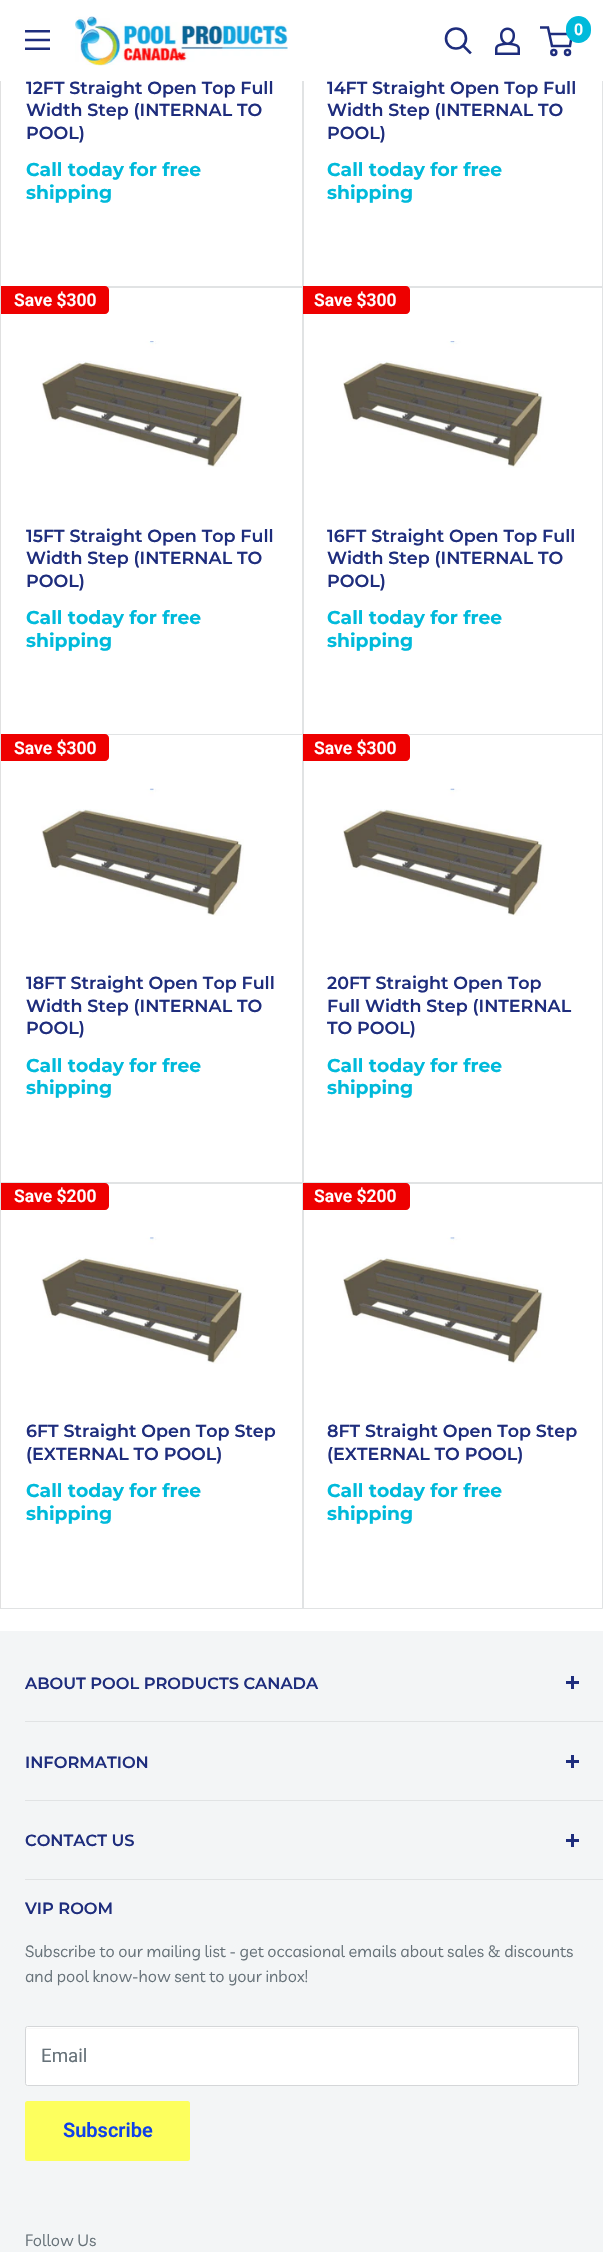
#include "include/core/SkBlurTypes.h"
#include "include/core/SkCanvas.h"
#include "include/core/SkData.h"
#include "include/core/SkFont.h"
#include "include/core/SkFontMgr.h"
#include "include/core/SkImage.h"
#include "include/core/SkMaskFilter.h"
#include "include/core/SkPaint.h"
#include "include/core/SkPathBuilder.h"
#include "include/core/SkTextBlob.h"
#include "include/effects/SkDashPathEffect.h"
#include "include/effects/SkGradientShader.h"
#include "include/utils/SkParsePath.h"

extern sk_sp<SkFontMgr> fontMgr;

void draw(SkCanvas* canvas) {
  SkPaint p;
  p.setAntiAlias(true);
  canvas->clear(SK_ColorWHITE);
  p.setColor(SkColorSetRGB(225, 227, 228));
  canvas->drawPath(SkPathBuilder().moveTo(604, 1609).lineTo(0, 1609).lineTo(1, 1608).lineTo(602, 1608).close().detach(), p);
  p.setColor(SkColorSetARGB(31, 0, 0, 0));
  canvas->drawPath(SkPathBuilder().moveTo(0, 1609).lineTo(0, -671).lineTo(1, -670).lineTo(1, 1608).close().detach(), p);
  p.setColor(SkColorSetRGB(225, 227, 228));
  canvas->drawRect(SkRect::MakeLTRB(303, 81, 304, 286), p);
  canvas->drawImageRect(SkImages::DeferredFromEncodedData(SkData::MakeFromFileName("images/4.png")), SkRect::MakeLTRB(41, 341, 244, 467), SkSamplingOptions());
  canvas->drawImageRect(SkImages::DeferredFromEncodedData(SkData::MakeFromFileName("images/5.png")), SkRect::MakeLTRB(343, 341, 544, 468), SkSamplingOptions());
  canvas->drawImageRect(SkImages::DeferredFromEncodedData(SkData::MakeFromFileName("images/6.png")), SkRect::MakeLTRB(41, 788, 244, 916), SkSamplingOptions());
  canvas->drawImageRect(SkImages::DeferredFromEncodedData(SkData::MakeFromFileName("images/7.png")), SkRect::MakeLTRB(343, 788, 544, 916), SkSamplingOptions());
  canvas->drawImageRect(SkImages::DeferredFromEncodedData(SkData::MakeFromFileName("images/8.png")), SkRect::MakeLTRB(41, 1237, 244, 1364), SkSamplingOptions());
  canvas->drawImageRect(SkImages::DeferredFromEncodedData(SkData::MakeFromFileName("images/9.png")), SkRect::MakeLTRB(343, 1237, 544, 1364), SkSamplingOptions());
  canvas->save();
  canvas->clipRect(SkRect::MakeLTRB(1, 0, 603, 1608));
  canvas->drawPath(SkPathBuilder().moveTo(303, 1608).lineTo(303, 1609).lineTo(603, 1609).lineTo(603, 1184).lineTo(602, 1184).lineTo(602, 1608).close().detach(), p);
  canvas->restore();
  p.setColor(SkColorSetRGB(243, 245, 246));
  canvas->drawRect(SkRect::MakeLTRB(0, 1631, 603, 2252), p);
  p.setColor(SkColorSetRGB(225, 227, 228));
  canvas->drawRect(SkRect::MakeLTRB(25, 1721, 603, 1722), p);
  p.setColor(SkColorSetRGB(30, 45, 125));
  canvas->drawRect(SkRect::MakeLTRB(571, 1676, 574, 1689), p);
  canvas->drawRect(SkRect::MakeLTRB(566, 1681, 579, 1684), p);
  p.setColor(SkColorSetRGB(225, 227, 228));
  canvas->drawRect(SkRect::MakeLTRB(25, 1800, 603, 1801), p);
  p.setColor(SkColorSetRGB(30, 45, 125));
  canvas->drawRect(SkRect::MakeLTRB(571, 1755, 574, 1768), p);
  canvas->drawRect(SkRect::MakeLTRB(566, 1760, 579, 1763), p);
  p.setColor(SkColorSetRGB(225, 227, 228));
  canvas->drawRect(SkRect::MakeLTRB(25, 1879, 603, 1880), p);
  p.setColor(SkColorSetRGB(30, 45, 125));
  canvas->drawRect(SkRect::MakeLTRB(571, 1834, 574, 1847), p);
  canvas->drawRect(SkRect::MakeLTRB(566, 1839, 579, 1842), p);
  p.setColor(SK_ColorWHITE);
  canvas->drawRoundRect(SkRect::MakeLTRB(25, 2026, 579, 2086), 2.5f, 2.5f, p);
  p.setColor(SkColorSetRGB(248, 248, 248));
  canvas->drawPath(SkPathBuilder().moveTo(28, 2029).lineTo(576, 2029).cubicTo(577, 2029, 578, 2029, 578, 2030).cubicTo(578, 2029, 578, 2028, 577, 2028).lineTo(26, 2028).lineTo(26, 2030).cubicTo(26, 2029, 27, 2029, 28, 2029).close().detach(), p);
  p.setStyle(SkPaint::kStroke_Style);
  p.setStrokeWidth(1);
  p.setColor(SkColorSetRGB(212, 214, 216));
  canvas->drawRoundRect(SkRect::MakeLTRB(25.5f, 2026.5f, 578.5f, 2085.5f), 2, 2, p);
  p.setStyle(SkPaint::kFill_Style);
  p.setColor(SkColorSetRGB(253, 255, 94));
  canvas->drawRoundRect(SkRect::MakeLTRB(25, 2101, 190, 2161), 2.5f, 2.5f, p);
  SkFont font1(fontMgr->matchFamilyStyle("Montserrat", SkFontStyle(100, SkFontStyle::kNormal_Width, SkFontStyle::kUpright_Slant)), 17.5f);
  font1.setSubpixel(true);
  p.setColor(SkColorSetRGB(30, 45, 125));
  canvas->drawString("12FT Straight Open Top Full", 26, 94, font1, p);
  canvas->drawString("Width Step (INTERNAL TO", 26, 116, font1, p);
  canvas->drawString("POOL)", 26, 139, font1, p);
  SkFont font2(fontMgr->matchFamilyStyle("Montserrat", SkFontStyle::Bold()), 18.75f);
  font2.setSubpixel(true);
  p.setColor(SkColorSetRGB(0, 186, 219));
  canvas->drawString("Call today for free", 26, 176, font2, p);
  canvas->drawString("shipping", 26, 199, font2, p);
  p.setColor(SkColorSetRGB(225, 227, 228));
  canvas->drawPath(SkPathBuilder().moveTo(1, -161).lineTo(1, 288).lineTo(303, 288).lineTo(303, -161).lineTo(302, -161).lineTo(302, 286).lineTo(1, 286).close().detach(), p);
  p.setColor(SkColorSetRGB(30, 45, 125));
  canvas->drawString("14FT Straight Open Top Full", 327, 94, font1, p);
  canvas->drawString("Width Step (INTERNAL TO", 327, 116, font1, p);
  canvas->drawString("POOL)", 327, 139, font1, p);
  p.setColor(SkColorSetRGB(0, 186, 219));
  canvas->drawString("Call today for free", 327, 176, font2, p);
  canvas->drawString("shipping", 327, 199, font2, p);
  p.setColor(SkColorSetRGB(225, 227, 228));
  canvas->drawPath(SkPathBuilder().moveTo(303, 286).lineTo(303, 288).lineTo(603, 288).lineTo(603, -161).lineTo(602, -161).lineTo(602, 286).close().detach(), p);
  p.setColor(SK_ColorWHITE);
  canvas->drawRect(SkRect::MakeLTRB(0, 0, 603, 81), p);
  p.setStyle(SkPaint::kStroke_Style);
  p.setStrokeWidth(2.5f);
  p.setColor(SkColorSetRGB(30, 45, 125));
  canvas->drawPath(SkPathBuilder().moveTo(549, 34).lineTo(572, 34).lineTo(570, 46).lineTo(552, 46).lineTo(548, 27.5f).lineTo(540, 27.5f).detach(), p);
  p.setStyle(SkPaint::kFill_Style);
  p.setColor(SkColorSetRGB(0, 186, 219));
  canvas->drawRoundRect(SkRect::MakeLTRB(566, 16, 591, 43), 12.5f, 12.5f, p);
  SkFont font3(fontMgr->matchFamilyStyle("Roboto", SkFontStyle(600, SkFontStyle::kNormal_Width, SkFontStyle::kUpright_Slant)), 16);
  font3.setSubpixel(true);
  p.setColor(SK_ColorWHITE);
  canvas->drawString("0", 574, 35, font3, p);
  p.setStyle(SkPaint::kStroke_Style);
  p.setColor(SkColorSetRGB(30, 45, 125));
  canvas->drawCircle(567.5f, 52.5f, 2.5f, p);
  canvas->drawCircle(553.8f, 52.5f, 2.5f, p);
  canvas->drawImageRect(SkImages::DeferredFromEncodedData(SkData::MakeFromFileName("images/3.png")), SkRect::MakeLTRB(495, 27, 520, 55), SkSamplingOptions());
  canvas->drawImageRect(SkImages::DeferredFromEncodedData(SkData::MakeFromFileName("images/1.png")), SkRect::MakeLTRB(25, 30, 50, 50), SkSamplingOptions());
  p.setStrokeWidth(2.6f);
  p.setStrokeCap(SkPaint::kSquare_Cap);
  canvas->drawPath(SkPathBuilder().moveTo(470, 52.5f).lineTo(463.5f, 46).detach(), p);
  p.setStrokeCap(SkPaint::kButt_Cap);
  canvas->drawCircle(456, 38.5f, 10, p);
  canvas->drawImageRect(SkImages::DeferredFromEncodedData(SkData::MakeFromFileName("images/2.png")), SkRect::MakeLTRB(75, 16, 288, 66), SkSamplingOptions());
  p.setStyle(SkPaint::kFill_Style);
  p.setColor(SkColorSetRGB(238, 0, 0));
  canvas->drawPath(SkPathBuilder().moveTo(1, 286).lineTo(105, 286).cubicTo(107, 286, 109, 288, 109, 290).lineTo(109, 310).cubicTo(109, 312, 107, 314, 105, 314).lineTo(1, 314).close().detach(), p);
  SkFont font4(fontMgr->matchFamilyStyle("Roboto", SkFontStyle(600, SkFontStyle::kNormal_Width, SkFontStyle::kUpright_Slant)), 17.5f);
  font4.setSubpixel(true);
  p.setColor(SK_ColorWHITE);
  canvas->drawString("Save $300", 14, 306, font4, p);
  p.setColor(SkColorSetRGB(30, 45, 125));
  canvas->drawString("15FT Straight Open Top Full", 26, 542, font1, p);
  canvas->drawString("Width Step (INTERNAL TO", 26, 564, font1, p);
  canvas->drawString("POOL)", 26, 587, font1, p);
  p.setColor(SkColorSetRGB(0, 186, 219));
  canvas->drawString("Call today for free", 26, 624, font2, p);
  canvas->drawString("shipping", 26, 647, font2, p);
  p.setColor(SkColorSetRGB(225, 227, 228));
  canvas->drawPath(SkPathBuilder().moveTo(1, 288).lineTo(1, 735).lineTo(303, 735).lineTo(303, 288).lineTo(302, 288).lineTo(302, 734).lineTo(1, 734).close().detach(), p);
  canvas->drawPath(SkPathBuilder().moveTo(3, 286).lineTo(302, 286).lineTo(302, 734).lineTo(3, 734).lineTo(304, 734).lineTo(304, 286).close().detach(), p);
  p.setColor(SkColorSetRGB(238, 0, 0));
  canvas->drawPath(SkPathBuilder().moveTo(303, 286).lineTo(406, 286).cubicTo(408, 286, 410, 288, 410, 290).lineTo(410, 310).cubicTo(410, 312, 408, 314, 406, 314).lineTo(303, 314).close().detach(), p);
  p.setColor(SK_ColorWHITE);
  canvas->drawString("Save $300", 314, 306, font4, p);
  p.setColor(SkColorSetRGB(30, 45, 125));
  canvas->drawString("16FT Straight Open Top Full", 327, 542, font1, p);
  canvas->drawString("Width Step (INTERNAL TO", 327, 564, font1, p);
  canvas->drawString("POOL)", 327, 587, font1, p);
  p.setColor(SkColorSetRGB(0, 186, 219));
  canvas->drawString("Call today for free", 327, 624, font2, p);
  canvas->drawString("shipping", 327, 647, font2, p);
  p.setColor(SkColorSetRGB(225, 227, 228));
  canvas->drawPath(SkPathBuilder().moveTo(303, 734).lineTo(303, 735).lineTo(603, 735).lineTo(603, 288).lineTo(602, 288).lineTo(602, 734).close().detach(), p);
  p.setColor(SkColorSetRGB(238, 0, 0));
  canvas->drawPath(SkPathBuilder().moveTo(1, 734).lineTo(105, 734).cubicTo(107, 734, 109, 736, 109, 738).lineTo(109, 757).cubicTo(109, 759, 107, 761, 105, 761).lineTo(1, 761).close().detach(), p);
  p.setColor(SK_ColorWHITE);
  canvas->drawString("Save $300", 14, 754, font4, p);
  p.setColor(SkColorSetRGB(30, 45, 125));
  canvas->drawString("18FT Straight Open Top Full", 26, 989, font1, p);
  canvas->drawString("Width Step (INTERNAL TO", 26, 1012, font1, p);
  canvas->drawString("POOL)", 26, 1034, font1, p);
  p.setColor(SkColorSetRGB(0, 186, 219));
  canvas->drawString("Call today for free", 26, 1072, font2, p);
  canvas->drawString("shipping", 26, 1094, font2, p);
  p.setColor(SkColorSetRGB(225, 227, 228));
  canvas->drawPath(SkPathBuilder().moveTo(1, 735).lineTo(1, 1184).lineTo(303, 1184).lineTo(303, 735).lineTo(302, 735).lineTo(302, 1182).lineTo(1, 1182).close().detach(), p);
  canvas->drawPath(SkPathBuilder().moveTo(3, 1182).lineTo(3, 1183).lineTo(304, 1183).lineTo(304, 734).lineTo(302, 734).lineTo(302, 1182).close().detach(), p);
  p.setColor(SkColorSetRGB(238, 0, 0));
  canvas->drawPath(SkPathBuilder().moveTo(303, 734).lineTo(406, 734).cubicTo(408, 734, 410, 736, 410, 738).lineTo(410, 757).cubicTo(410, 759, 408, 761, 406, 761).lineTo(303, 761).close().detach(), p);
  p.setColor(SK_ColorWHITE);
  canvas->drawString("Save $300", 314, 754, font4, p);
  p.setColor(SkColorSetRGB(30, 45, 125));
  canvas->drawString("20FT Straight Open Top", 327, 989, font1, p);
  canvas->drawString("Full Width Step (INTERNAL", 327, 1012, font1, p);
  canvas->drawString("TO POOL)", 327, 1034, font1, p);
  p.setColor(SkColorSetRGB(0, 186, 219));
  canvas->drawString("Call today for free", 327, 1072, font2, p);
  canvas->drawString("shipping", 327, 1094, font2, p);
  p.setColor(SkColorSetRGB(225, 227, 228));
  canvas->drawPath(SkPathBuilder().moveTo(303, 1182).lineTo(303, 1184).lineTo(603, 1184).lineTo(603, 735).lineTo(602, 735).lineTo(602, 1182).close().detach(), p);
  p.setColor(SkColorSetRGB(238, 0, 0));
  canvas->drawPath(SkPathBuilder().moveTo(1, 1183).lineTo(105, 1183).cubicTo(107, 1183, 109, 1185, 109, 1187).lineTo(109, 1206).cubicTo(109, 1208, 107, 1210, 105, 1210).lineTo(1, 1210).close().detach(), p);
  p.setColor(SK_ColorWHITE);
  canvas->drawString("Save $200", 14, 1202, font4, p);
  p.setColor(SkColorSetRGB(30, 45, 125));
  canvas->drawString("6FT Straight Open Top Step", 26, 1437, font1, p);
  canvas->drawString("(EXTERNAL TO POOL)", 26, 1460, font1, p);
  p.setColor(SkColorSetRGB(0, 186, 219));
  canvas->drawString("Call today for free", 26, 1497, font2, p);
  canvas->drawString("shipping", 26, 1520, font2, p);
  p.setColor(SkColorSetRGB(225, 227, 228));
  canvas->drawPath(SkPathBuilder().moveTo(3, 1608).lineTo(304, 1608).lineTo(304, 1183).lineTo(302, 1183).lineTo(302, 1608).close().detach(), p);
  p.setColor(SkColorSetRGB(238, 0, 0));
  canvas->drawPath(SkPathBuilder().moveTo(303, 1183).lineTo(406, 1183).cubicTo(408, 1183, 410, 1185, 410, 1187).lineTo(410, 1206).cubicTo(410, 1208, 408, 1210, 406, 1210).lineTo(303, 1210).close().detach(), p);
  p.setColor(SK_ColorWHITE);
  canvas->drawString("Save $200", 314, 1202, font4, p);
  p.setColor(SkColorSetRGB(30, 45, 125));
  canvas->drawString("8FT Straight Open Top Step", 327, 1437, font1, p);
  canvas->drawString("(EXTERNAL TO POOL)", 327, 1460, font1, p);
  p.setColor(SkColorSetRGB(0, 186, 219));
  canvas->drawString("Call today for free", 327, 1497, font2, p);
  canvas->drawString("shipping", 327, 1520, font2, p);
  SkFont font5(fontMgr->matchFamilyStyle("Montserrat", SkFontStyle(100, SkFontStyle::kNormal_Width, SkFontStyle::kUpright_Slant)), 16.25f);
  font5.setSubpixel(true);
  p.setColor(SkColorSetRGB(30, 45, 125));
  canvas->drawString("ABOUT POOL PRODUCTS CANADA", 25, 1689, font5, p);
  canvas->drawString("INFORMATION", 25, 1768, font5, p);
  canvas->drawString("CONTACT US", 25, 1846, font5, p);
  canvas->drawString("VIP ROOM", 25, 1914, font5, p);
  SkFont font6(fontMgr->matchFamilyStyle("Livvic", SkFontStyle::Normal()), 16.25f);
  font6.setSubpixel(true);
  p.setColor(SkColorSetRGB(103, 114, 121));
  canvas->drawString("Subscribe to our mailing list - get occasional emails about sales & discounts", 25, 1957, font6, p);
  canvas->drawString("and pool know-how sent to your inbox!", 25, 1982, font6, p);
  SkFont font7(fontMgr->matchFamilyStyle("Roboto", SkFontStyle::Normal()), 18.75f);
  font7.setSubpixel(true);
  canvas->drawString("Email", 41, 2062, font7, p);
  SkFont font8(fontMgr->matchFamilyStyle("Roboto", SkFontStyle(600, SkFontStyle::kNormal_Width, SkFontStyle::kUpright_Slant)), 20);
  font8.setSubpixel(true);
  p.setColor(SkColorSetRGB(15, 64, 233));
  canvas->drawString("Subscribe", 63, 2137, font8, p);
  p.setColor(SkColorSetRGB(103, 114, 121));
  canvas->drawString("Follow Us", 25, 2246, font6, p);
}
